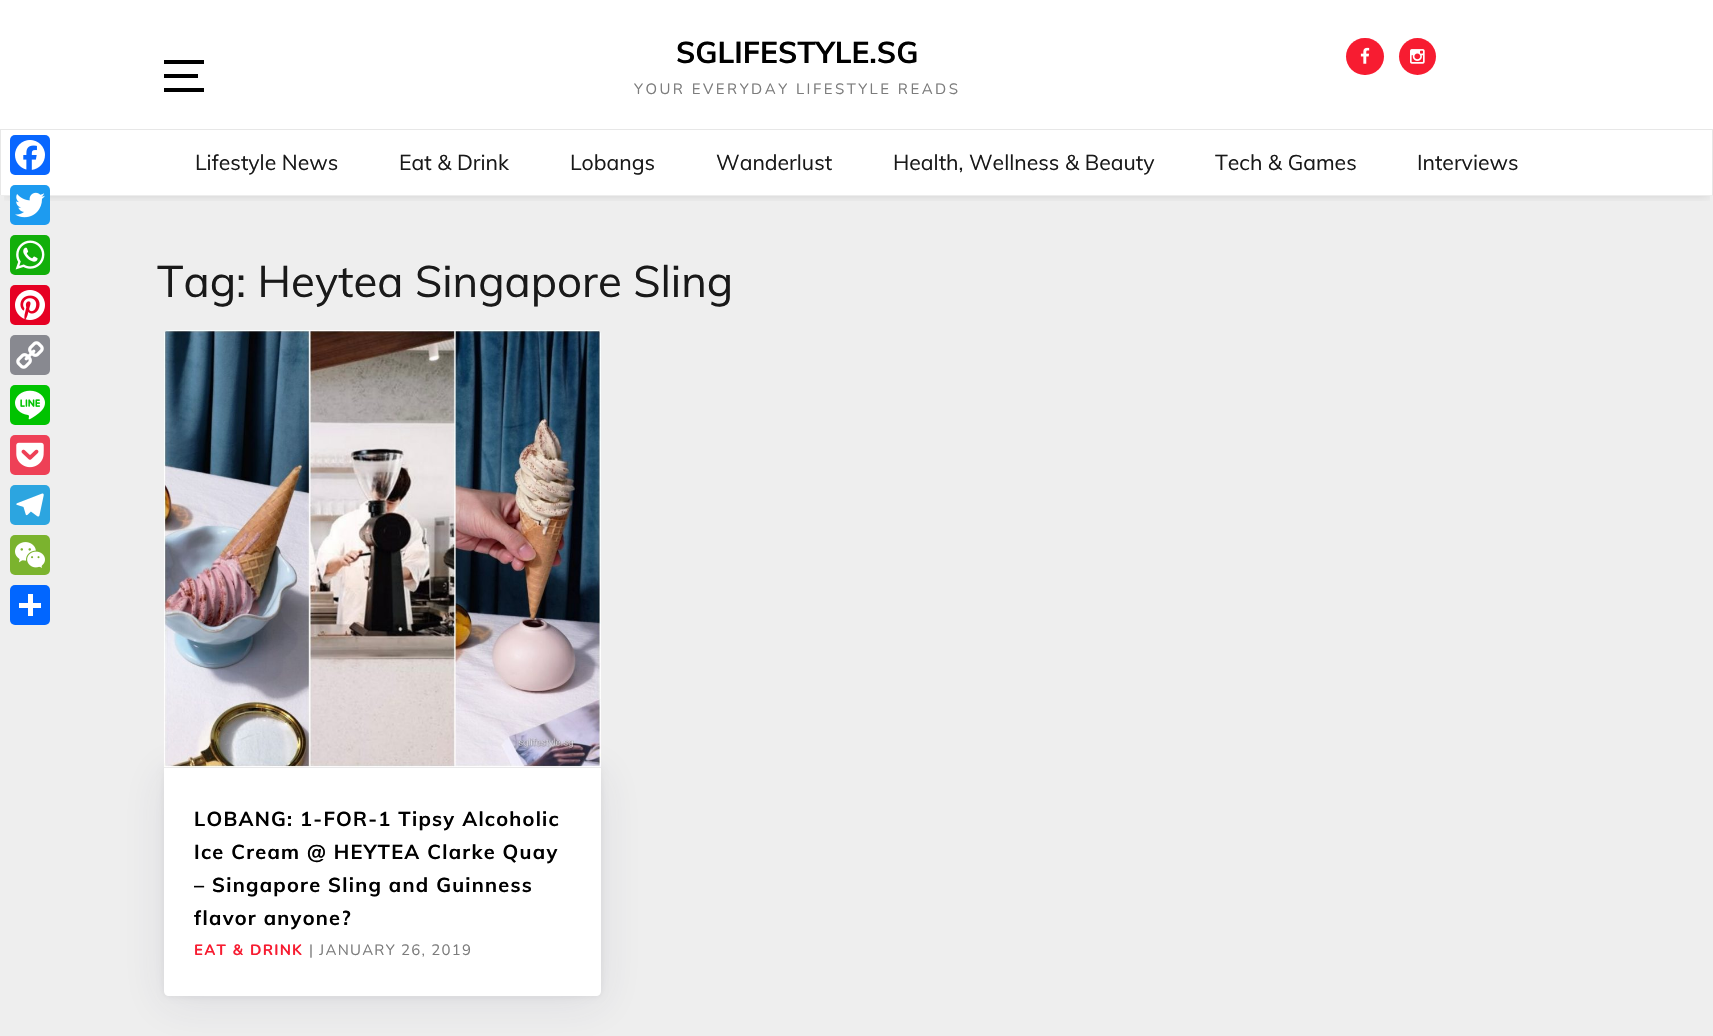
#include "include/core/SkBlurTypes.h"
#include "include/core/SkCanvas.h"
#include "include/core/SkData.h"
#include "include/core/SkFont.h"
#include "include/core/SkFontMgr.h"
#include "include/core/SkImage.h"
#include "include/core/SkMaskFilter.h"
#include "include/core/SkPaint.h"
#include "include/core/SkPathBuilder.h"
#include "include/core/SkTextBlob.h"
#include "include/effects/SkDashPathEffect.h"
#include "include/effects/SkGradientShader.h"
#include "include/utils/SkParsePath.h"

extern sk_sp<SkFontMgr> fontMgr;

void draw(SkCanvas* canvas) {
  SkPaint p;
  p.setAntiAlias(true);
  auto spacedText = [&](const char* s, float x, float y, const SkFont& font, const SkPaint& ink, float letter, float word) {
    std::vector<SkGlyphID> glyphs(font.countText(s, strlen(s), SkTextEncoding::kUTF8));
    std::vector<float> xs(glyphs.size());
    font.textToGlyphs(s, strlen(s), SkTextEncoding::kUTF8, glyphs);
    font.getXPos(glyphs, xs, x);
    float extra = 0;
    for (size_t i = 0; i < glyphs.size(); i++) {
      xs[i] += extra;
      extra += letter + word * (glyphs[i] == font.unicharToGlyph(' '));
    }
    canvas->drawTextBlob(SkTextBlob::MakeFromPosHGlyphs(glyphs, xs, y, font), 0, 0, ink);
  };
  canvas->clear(SkColorSetRGB(238, 238, 238));
  p.setColor(SK_ColorWHITE);
  canvas->drawRect(SkRect::MakeLTRB(0, 0, 1713, 196), p);
  canvas->save();
  canvas->clipRect(SkRect::MakeLTRB(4, 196, 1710, 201));
  p.setColor(SkColorSetARGB(38, 0, 0, 0));
  p.setMaskFilter(SkMaskFilter::MakeBlur(kNormal_SkBlurStyle, 5));
  canvas->drawRect(SkRect::MakeLTRB(5, 138, 1709, 195), p);
  p.setMaskFilter(nullptr);
  canvas->restore();
  p.setColor(SkColorSetRGB(8, 102, 255));
  canvas->drawRoundRect(SkRect::MakeLTRB(10, 135, 50, 175), 5, 5, p);
  canvas->drawImageRect(SkImages::DeferredFromEncodedData(SkData::MakeFromFileName("images/1.png")), SkRect::MakeLTRB(15, 140, 45, 170), SkSamplingOptions());
  p.setColor(SkColorSetRGB(231, 231, 231));
  canvas->drawRect(SkRect::MakeLTRB(0, 129, 1713, 130), p);
  canvas->drawPath(SkPathBuilder().moveTo(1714, 129).lineTo(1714, 196).lineTo(1712, 195).lineTo(1712, 130).close().detach(), p);
  p.setColor(SkColorSetARGB(18, 0, 0, 0));
  canvas->drawPath(SkPathBuilder().moveTo(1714, 196).lineTo(0, 196).lineTo(1, 195).lineTo(1712, 195).close().detach(), p);
  p.setColor(SkColorSetRGB(29, 155, 240));
  canvas->drawRoundRect(SkRect::MakeLTRB(10, 185, 50, 225), 5, 5, p);
  canvas->drawImageRect(SkImages::DeferredFromEncodedData(SkData::MakeFromFileName("images/2.png")), SkRect::MakeLTRB(15, 192, 45, 218), SkSamplingOptions());
  p.setColor(SkColorSetRGB(18, 175, 10));
  canvas->drawRoundRect(SkRect::MakeLTRB(10, 235, 50, 275), 5, 5, p);
  canvas->drawImageRect(SkImages::DeferredFromEncodedData(SkData::MakeFromFileName("images/3.png")), SkRect::MakeLTRB(15, 240, 45, 270), SkSamplingOptions());
  p.setColor(SkColorSetRGB(230, 0, 35));
  canvas->drawRoundRect(SkRect::MakeLTRB(10, 285, 50, 325), 5, 5, p);
  canvas->drawImageRect(SkImages::DeferredFromEncodedData(SkData::MakeFromFileName("images/4.png")), SkRect::MakeLTRB(15, 290, 45, 320), SkSamplingOptions());
  p.setColor(SkColorSetRGB(136, 137, 144));
  canvas->drawRoundRect(SkRect::MakeLTRB(10, 335, 50, 375), 5, 5, p);
  canvas->drawImageRect(SkImages::DeferredFromEncodedData(SkData::MakeFromFileName("images/5.png")), SkRect::MakeLTRB(16, 341, 44, 369), SkSamplingOptions());
  p.setColor(SkColorSetRGB(0, 195, 0));
  canvas->drawRoundRect(SkRect::MakeLTRB(10, 385, 50, 425), 5, 5, p);
  canvas->drawImageRect(SkImages::DeferredFromEncodedData(SkData::MakeFromFileName("images/6.png")), SkRect::MakeLTRB(15, 390, 45, 420), SkSamplingOptions());
  p.setColor(SkColorSetRGB(238, 64, 86));
  canvas->drawRoundRect(SkRect::MakeLTRB(10, 435, 50, 475), 5, 5, p);
  canvas->drawImageRect(SkImages::DeferredFromEncodedData(SkData::MakeFromFileName("images/7.png")), SkRect::MakeLTRB(16, 442, 44, 468), SkSamplingOptions());
  p.setColor(SkColorSetRGB(44, 165, 224));
  canvas->drawRoundRect(SkRect::MakeLTRB(10, 485, 50, 525), 5, 5, p);
  canvas->drawImageRect(SkImages::DeferredFromEncodedData(SkData::MakeFromFileName("images/8.png")), SkRect::MakeLTRB(16, 493, 44, 517), SkSamplingOptions());
  p.setColor(SkColorSetRGB(123, 179, 46));
  canvas->drawRoundRect(SkRect::MakeLTRB(10, 535, 50, 575), 5, 5, p);
  canvas->drawImageRect(SkImages::DeferredFromEncodedData(SkData::MakeFromFileName("images/9.png")), SkRect::MakeLTRB(15, 542, 45, 568), SkSamplingOptions());
  p.setColor(SkColorSetRGB(1, 102, 255));
  canvas->drawRoundRect(SkRect::MakeLTRB(10, 585, 50, 625), 5, 5, p);
  p.setColor(SK_ColorWHITE);
  canvas->drawRect(SkRect::MakeLTRB(28, 594, 33, 616), p);
  canvas->drawRect(SkRect::MakeLTRB(19, 603, 41, 608), p);
  p.setColor(SK_ColorBLACK);
  canvas->drawRect(SkRect::MakeLTRB(164, 74, 198, 78), p);
  canvas->drawRect(SkRect::MakeLTRB(164, 60, 204, 64), p);
  canvas->drawRect(SkRect::MakeLTRB(164, 88, 204, 92), p);
  p.setColor(SkColorSetRGB(247, 28, 49));
  canvas->drawRoundRect(SkRect::MakeLTRB(1346, 38, 1384, 75), 18.5f, 18.5f, p);
  canvas->drawImageRect(SkImages::DeferredFromEncodedData(SkData::MakeFromFileName("images/10.png")), SkRect::MakeLTRB(1360, 47, 1370, 64), SkSamplingOptions());
  canvas->drawCircle(1417.5f, 56.5f, 18.5f, p);
  canvas->drawImageRect(SkImages::DeferredFromEncodedData(SkData::MakeFromFileName("images/11.png")), SkRect::MakeLTRB(1410, 49, 1425, 64), SkSamplingOptions());
  p.setColor(SkColorSetRGB(231, 231, 231));
  canvas->drawPath(SkPathBuilder().moveTo(0, 196).lineTo(0, 129).lineTo(1, 130).lineTo(1, 195).close().detach(), p);
  p.setColor(SkColorSetARGB(18, 0, 0, 0));
  p.setMaskFilter(SkMaskFilter::MakeBlur(kNormal_SkBlurStyle, 3));
  canvas->drawRoundRect(SkRect::MakeLTRB(164, 768, 601, 996), 5, 5, p);
  p.setMaskFilter(nullptr);
  p.setColor(SkColorSetARGB(26, 50, 50, 93));
  p.setMaskFilter(SkMaskFilter::MakeBlur(kNormal_SkBlurStyle, 22));
  canvas->drawRoundRect(SkRect::MakeLTRB(164, 774, 601, 1003), 5, 5, p);
  p.setMaskFilter(nullptr);
  canvas->drawImageRect(SkImages::DeferredFromEncodedData(SkData::MakeFromFileName("images/12.png")), SkRect::MakeLTRB(164, 330, 601, 768), SkSamplingOptions());
  p.setColor(SK_ColorWHITE);
  canvas->drawPath(SkPathBuilder().moveTo(164, 768).lineTo(601, 768).lineTo(601, 991).cubicTo(601, 994, 599, 996, 596, 996).lineTo(169, 996).cubicTo(166, 996, 164, 994, 164, 991).close().detach(), p);
  SkFont font1(fontMgr->matchFamilyStyle("Muli", SkFontStyle::Bold()), 30);
  font1.setSubpixel(true);
  p.setColor(SK_ColorBLACK);
  canvas->drawString("SGLIFESTYLE.SG", 676, 63, font1, p);
  SkFont font2(fontMgr->matchFamilyStyle("Nunito", SkFontStyle::Normal()), 15);
  font2.setSubpixel(true);
  p.setColor(SkColorSetRGB(124, 124, 124));
  spacedText("YOUR EVERYDAY LIFESTYLE READS", 634, 94, font2, p, 2.5f, 0);
  SkFont font3(fontMgr->matchFamilyStyle("Muli", SkFontStyle::Normal()), 21.25f);
  font3.setSubpixel(true);
  p.setColor(SkColorSetRGB(25, 25, 25));
  canvas->drawString("Lifestyle News", 195, 170, font3, p);
  canvas->drawString("Eat & Drink", 399, 170, font3, p);
  canvas->drawString("Lobangs", 570, 170, font3, p);
  canvas->drawString("Wanderlust", 716, 170, font3, p);
  canvas->drawString("Health, Wellness & Beauty", 893, 170, font3, p);
  canvas->drawString("Tech & Games", 1215, 170, font3, p);
  canvas->drawString("Interviews", 1417, 170, font3, p);
  SkFont font4(fontMgr->matchFamilyStyle("Muli", SkFontStyle::Normal()), 43.75f);
  font4.setSubpixel(true);
  canvas->drawString("Tag: Heytea Singapore Sling", 157, 297, font4, p);
  SkFont font5(fontMgr->matchFamilyStyle("Muli", SkFontStyle::Bold()), 20);
  font5.setSubpixel(true);
  p.setColor(SK_ColorBLACK);
  spacedText("LOBANG: 1-FOR-1 Tipsy Alcoholic", 194, 826, font5, p, 1.25f, 0);
  spacedText("Ice Cream @ HEYTEA Clarke Quay", 194, 859, font5, p, 1.25f, 0);
  spacedText("– Singapore Sling and Guinness", 194, 892, font5, p, 1.25f, 0);
  spacedText("flavor anyone?", 194, 925, font5, p, 1.25f, 0);
  SkFont font6(fontMgr->matchFamilyStyle("Nunito", SkFontStyle::Bold()), 15);
  font6.setSubpixel(true);
  p.setColor(SkColorSetRGB(247, 28, 49));
  spacedText("EAT & DRINK", 194, 955, font6, p, 1.25f, 0);
  p.setColor(SkColorSetRGB(124, 124, 124));
  spacedText("| JANUARY 26, 2019", 309, 955, font2, p, 1.25f, 0);
}
